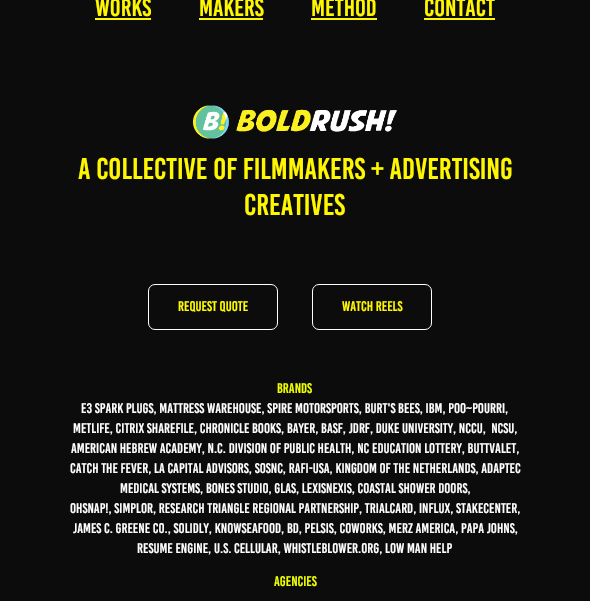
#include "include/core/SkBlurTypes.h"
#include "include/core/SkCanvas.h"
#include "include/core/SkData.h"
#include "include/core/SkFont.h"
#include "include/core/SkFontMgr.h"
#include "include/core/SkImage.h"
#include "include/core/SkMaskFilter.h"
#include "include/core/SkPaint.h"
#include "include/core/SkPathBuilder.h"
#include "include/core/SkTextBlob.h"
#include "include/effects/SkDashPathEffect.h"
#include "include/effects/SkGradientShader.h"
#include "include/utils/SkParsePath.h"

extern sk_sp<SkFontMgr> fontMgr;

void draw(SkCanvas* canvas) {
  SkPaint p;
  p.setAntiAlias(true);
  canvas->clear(SkColorSetRGB(12, 12, 12));
  p.setColor(SkColorSetRGB(255, 247, 0));
  canvas->drawRect(SkRect::MakeLTRB(95, 18, 151, 20), p);
  canvas->drawRect(SkRect::MakeLTRB(199, 18, 263, 20), p);
  canvas->drawRect(SkRect::MakeLTRB(311, 18, 377, 20), p);
  canvas->drawRect(SkRect::MakeLTRB(424, 18, 495, 20), p);
  canvas->drawImageRect(SkImages::DeferredFromEncodedData(SkData::MakeFromFileName("images/1.png")), SkRect::MakeLTRB(193, 105, 397, 139), SkSamplingOptions());
  p.setStyle(SkPaint::kStroke_Style);
  p.setStrokeWidth(1);
  p.setColor(SK_ColorWHITE);
  canvas->drawRoundRect(SkRect::MakeLTRB(148.5f, 284.5f, 277.5f, 329.5f), 6.5f, 6.5f, p);
  canvas->drawRoundRect(SkRect::MakeLTRB(312.5f, 284.5f, 431.5f, 329.5f), 6.5f, 6.5f, p);
  SkFont font1(fontMgr->matchFamilyStyle("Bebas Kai", SkFontStyle::Normal()), 25);
  font1.setSubpixel(true);
  p.setStyle(SkPaint::kFill_Style);
  p.setColor(SkColorSetRGB(255, 247, 0));
  canvas->drawString("WORKS", 95, 16, font1, p);
  canvas->drawString("MAKERS", 199, 16, font1, p);
  canvas->drawString("METHOD", 311, 16, font1, p);
  canvas->drawString("CONTACT", 424, 16, font1, p);
  SkFont font2(fontMgr->matchFamilyStyle("Bebas Kai", SkFontStyle::Normal()), 30);
  font2.setSubpixel(true);
  canvas->drawString("a collective of filmmakers + advertising", 78, 179, font2, p);
  canvas->drawString("creatives", 244, 215, font2, p);
  SkFont font3(fontMgr->matchFamilyStyle("Bebas Kai", SkFontStyle::Normal()), 14);
  font3.setSubpixel(true);
  p.setColor(SkColorSetRGB(255, 253, 0));
  canvas->drawString("REQUEST QUOTE", 178, 311, font3, p);
  p.setColor(SkColorSetRGB(255, 247, 0));
  canvas->drawString("WATCH REELS", 342, 311, font3, p);
  p.setColor(SkColorSetRGB(238, 255, 0));
  canvas->drawString("BRANDS", 277, 393, font3, p);
  p.setColor(SK_ColorWHITE);
  canvas->drawString("E3 Spark Plugs, Mattress Warehouse, Spire Motorsports, Burt's Bees, IBM, Poo~Pourri,", 81, 413, font3, p);
  canvas->drawString("MetLife, Citrix ShareFile, Chronicle Books, Bayer, BASF, JDRF, Duke University, NCCU,  NCSU,", 73, 433, font3, p);
  canvas->drawString("American Hebrew Academy, N.C. Division of Public Health, NC Education Lottery, ButtValet,", 71, 453, font3, p);
  canvas->drawString("Catch The Fever, LA Capital Advisors, SOSNC, RAFI-USA, Kingdom of the Netherlands, Adaptec", 70, 473, font3, p);
  canvas->drawString("Medical Systems, Bones Studio, Glas, LexisNexis, Coastal Shower Doors,", 120, 493, font3, p);
  canvas->drawString("OhSnap!, SimplOR, Research Triangle Regional Partnership, TrialCard, Influx, StakeCenter,", 70, 513, font3, p);
  canvas->drawString("James C. Greene Co., Solidly, KnowSeafood, BD, Pelsis, Coworks, Merz America, Papa Johns,", 73, 533, font3, p);
  canvas->drawString("Resume Engine, U.S. Cellular, WhistleBlower.org, Low Man Help", 137, 553, font3, p);
  p.setColor(SkColorSetRGB(238, 255, 0));
  canvas->drawString("AGENCIES", 274, 586, font3, p);
}
